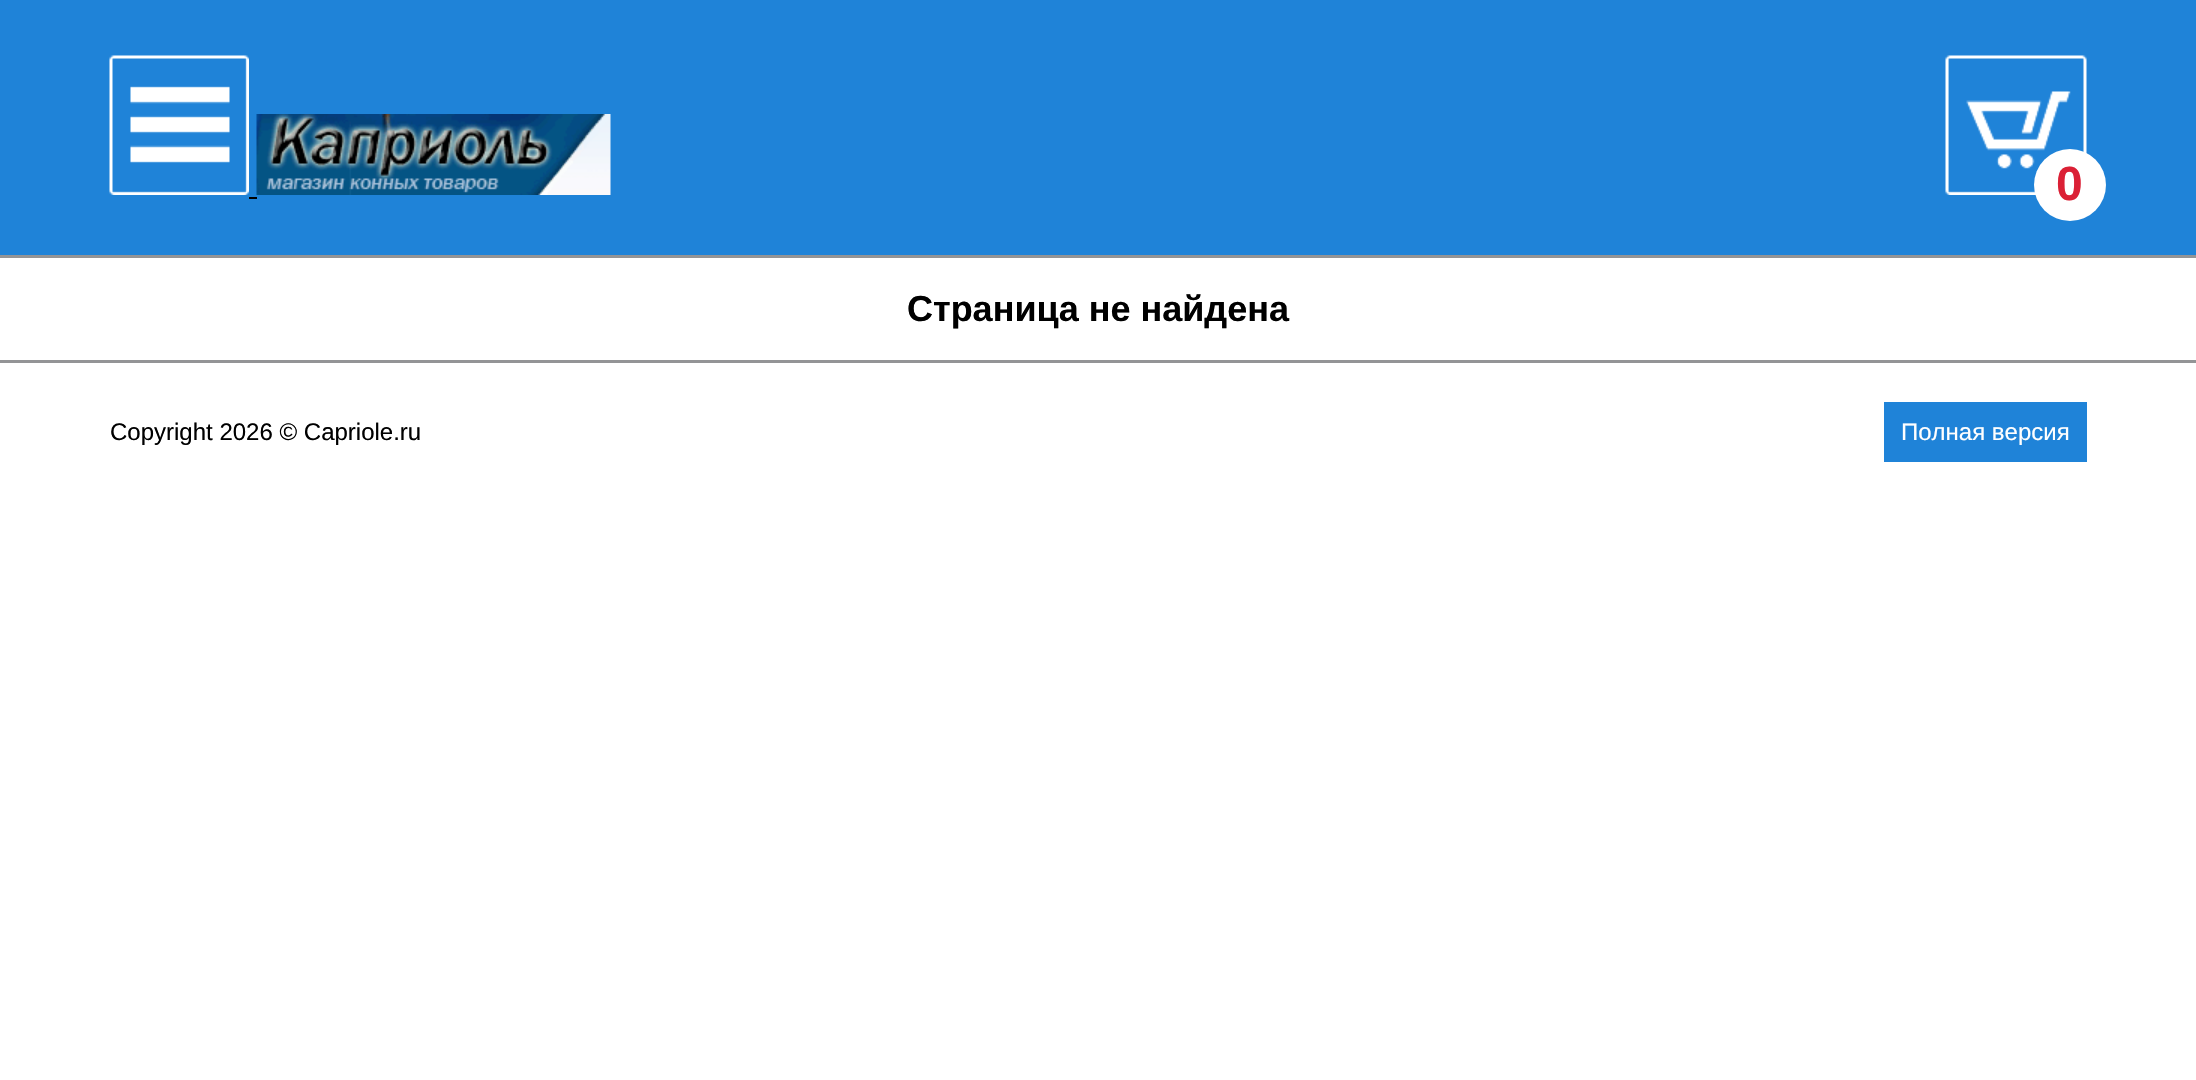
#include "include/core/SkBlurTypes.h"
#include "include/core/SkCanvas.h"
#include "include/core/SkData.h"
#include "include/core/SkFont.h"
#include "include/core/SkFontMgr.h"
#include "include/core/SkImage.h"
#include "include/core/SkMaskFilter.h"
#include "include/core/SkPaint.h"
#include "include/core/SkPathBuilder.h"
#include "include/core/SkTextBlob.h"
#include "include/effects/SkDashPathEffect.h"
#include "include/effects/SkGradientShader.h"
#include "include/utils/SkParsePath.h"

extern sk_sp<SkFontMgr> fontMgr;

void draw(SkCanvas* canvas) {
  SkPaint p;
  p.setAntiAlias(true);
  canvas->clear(SK_ColorWHITE);
  p.setColor(SkColorSetRGB(31, 131, 216));
  canvas->drawRect(SkRect::MakeLTRB(0, 0, 2196, 255), p);
  p.setColor(SkColorSetRGB(147, 148, 150));
  canvas->drawRect(SkRect::MakeLTRB(0, 255, 2196, 258), p);
  canvas->drawImageRect(SkImages::DeferredFromEncodedData(SkData::MakeFromFileName("images/1.png")), SkRect::MakeLTRB(109, 55, 249, 195), SkSamplingOptions());
  p.setColor(SK_ColorBLACK);
  canvas->drawRect(SkRect::MakeLTRB(249, 197, 257, 199), p);
  canvas->drawImageRect(SkImages::DeferredFromEncodedData(SkData::MakeFromFileName("images/2.png")), SkRect::MakeLTRB(256, 114, 611, 195), SkSamplingOptions());
  canvas->drawImageRect(SkImages::DeferredFromEncodedData(SkData::MakeFromFileName("images/3.png")), SkRect::MakeLTRB(1945, 55, 2087, 195), SkSamplingOptions());
  p.setColor(SK_ColorWHITE);
  canvas->drawCircle(2070, 185, 36, p);
  p.setColor(SkColorSetRGB(147, 148, 150));
  canvas->drawRect(SkRect::MakeLTRB(0, 360, 2196, 363), p);
  p.setColor(SkColorSetRGB(31, 131, 216));
  canvas->drawRect(SkRect::MakeLTRB(1884, 402, 2087, 462), p);
  SkFont font1(fontMgr->matchFamilyStyle("Liberation Sans", SkFontStyle::Bold()), 48);
  font1.setSubpixel(true);
  p.setColor(SkColorSetRGB(219, 32, 53));
  canvas->drawString("0", 2056, 200, font1, p);
  SkFont font2(fontMgr->matchFamilyStyle("Liberation Sans", SkFontStyle::Bold()), 36);
  font2.setSubpixel(true);
  p.setColor(SK_ColorBLACK);
  canvas->drawString("Страница не найдена", 907, 321, font2, p);
  SkFont font3(fontMgr->matchFamilyStyle("Liberation Sans", SkFontStyle::Normal()), 24);
  font3.setSubpixel(true);
  canvas->drawString("Copyright 2026 © Capriole.ru", 110, 440, font3, p);
  p.setColor(SK_ColorWHITE);
  canvas->drawString("Полная версия", 1901, 440, font3, p);
}
